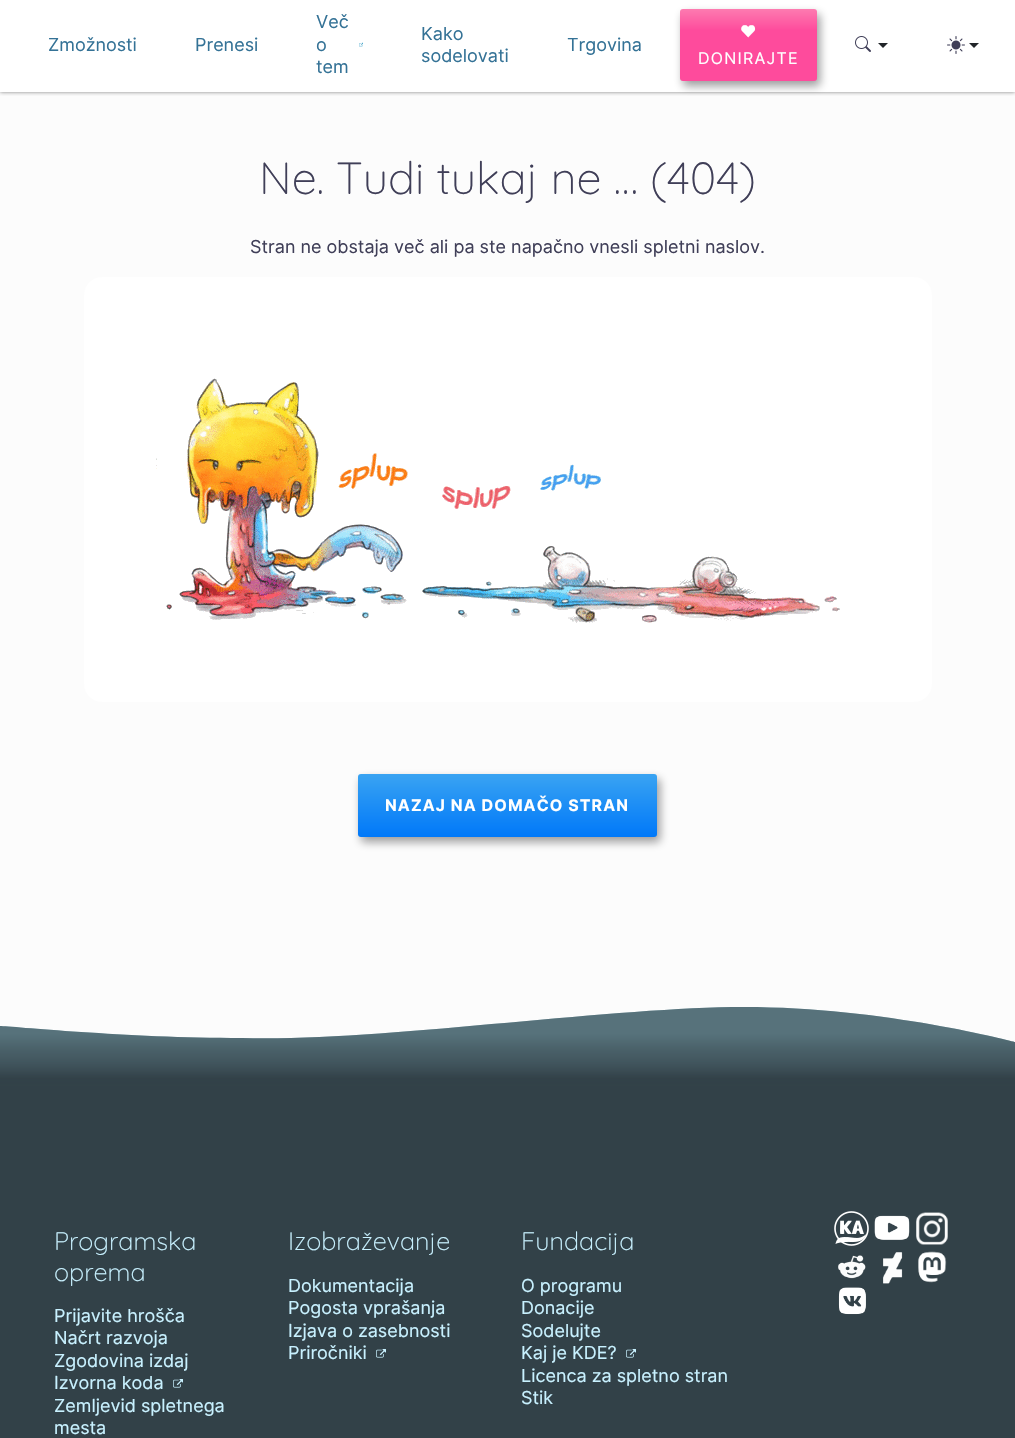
#include "include/core/SkBlurTypes.h"
#include "include/core/SkCanvas.h"
#include "include/core/SkData.h"
#include "include/core/SkFont.h"
#include "include/core/SkFontMgr.h"
#include "include/core/SkImage.h"
#include "include/core/SkMaskFilter.h"
#include "include/core/SkPaint.h"
#include "include/core/SkPathBuilder.h"
#include "include/core/SkTextBlob.h"
#include "include/effects/SkDashPathEffect.h"
#include "include/effects/SkGradientShader.h"
#include "include/utils/SkParsePath.h"

extern sk_sp<SkFontMgr> fontMgr;

void draw(SkCanvas* canvas) {
  SkPaint p;
  p.setAntiAlias(true);
  auto spacedText = [&](const char* s, float x, float y, const SkFont& font, const SkPaint& ink, float letter, float word) {
    std::vector<SkGlyphID> glyphs(font.countText(s, strlen(s), SkTextEncoding::kUTF8));
    std::vector<float> xs(glyphs.size());
    font.textToGlyphs(s, strlen(s), SkTextEncoding::kUTF8, glyphs);
    font.getXPos(glyphs, xs, x);
    float extra = 0;
    for (size_t i = 0; i < glyphs.size(); i++) {
      xs[i] += extra;
      extra += letter + word * (glyphs[i] == font.unicharToGlyph(' '));
    }
    canvas->drawTextBlob(SkTextBlob::MakeFromPosHGlyphs(glyphs, xs, y, font), 0, 0, ink);
  };
  canvas->clear(SkColorSetRGB(252, 252, 252));
  p.setColor(SK_ColorWHITE);
  canvas->drawRect(SkRect::MakeLTRB(0, 0, 1015, 92), p);
  canvas->save();
  canvas->clipRect(SkRect::MakeLTRB(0, 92, 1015, 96));
  p.setColor(SkColorSetRGB(128, 128, 128));
  p.setMaskFilter(SkMaskFilter::MakeBlur(kNormal_SkBlurStyle, 2));
  canvas->drawRect(SkRect::MakeLTRB(0, 0, 1015, 92), p);
  p.setMaskFilter(nullptr);
  canvas->restore();
  canvas->drawImageRect(SkImages::DeferredFromEncodedData(SkData::MakeFromFileName("images/1.png")), SkRect::MakeLTRB(359, 42, 363, 47), SkSamplingOptions());
  p.setColor(SkColorSetARGB(102, 4, 6, 7));
  p.setMaskFilter(SkMaskFilter::MakeBlur(kNormal_SkBlurStyle, 5));
  canvas->drawRoundRect(SkRect::MakeLTRB(683, 14, 820, 86), 3, 3, p);
  p.setMaskFilter(nullptr);
  {
    const SkColor colors[] = {SkColorSetRGB(254, 75, 156), SkColorSetRGB(253, 123, 176)};
    const float stops[] = {0.7f, 1};
    const SkPoint ends[] = {{749, 81}, {749, 9}};
    p.setShader(SkGradientShader::MakeLinear(ends, colors, stops, 2, SkTileMode::kClamp));
    p.setAlpha(255);
  }
  canvas->drawRoundRect(SkRect::MakeLTRB(680, 9, 817, 81), 3, 3, p);
  canvas->drawImageRect(SkImages::DeferredFromEncodedData(SkData::MakeFromFileName("images/2.png")), SkRect::MakeLTRB(855, 36, 871, 52), SkSamplingOptions());
  p.setShader(nullptr);
  p.setColor(SkColorSetRGB(33, 37, 41));
  canvas->drawPath(SkPathBuilder().moveTo(878, 43).lineTo(888, 43).lineTo(883, 48).close().detach(), p);
  canvas->drawImageRect(SkImages::DeferredFromEncodedData(SkData::MakeFromFileName("images/3.png")), SkRect::MakeLTRB(947, 36, 965, 54), SkSamplingOptions());
  canvas->drawPath(SkPathBuilder().moveTo(969, 43).lineTo(979, 43).lineTo(974, 48).close().detach(), p);
  p.setColor(SK_ColorWHITE);
  canvas->drawRoundRect(SkRect::MakeLTRB(84, 277, 932, 702), 18, 18, p);
  canvas->drawImageRect(SkImages::DeferredFromEncodedData(SkData::MakeFromFileName("images/4.png")), SkRect::MakeLTRB(156, 378, 840, 623), SkSamplingOptions());
  p.setColor(SkColorSetARGB(102, 4, 6, 7));
  p.setMaskFilter(SkMaskFilter::MakeBlur(kNormal_SkBlurStyle, 5));
  canvas->drawRoundRect(SkRect::MakeLTRB(361, 779, 660, 842), 3, 3, p);
  p.setMaskFilter(nullptr);
  {
    const SkColor colors[] = {SkColorSetRGB(57, 163, 242), SkColorSetRGB(0, 120, 249)};
    const float stops[] = {0.01f, 1};
    const SkPoint ends[] = {{508, 774}, {508, 837}};
    p.setShader(SkGradientShader::MakeLinear(ends, colors, stops, 2, SkTileMode::kClamp));
    p.setAlpha(255);
  }
  canvas->drawRoundRect(SkRect::MakeLTRB(358, 774, 657, 837), 3, 3, p);
  {
    const SkColor colors[] = {SkColorSetRGB(123, 163, 175), SkColorSetRGB(50, 65, 72), SkColorSetRGB(50, 65, 72)};
    const float stops[] = {0.3f, 0.8f, 1};
    const SkPoint ends[] = {{0, 1007}, {0, 1096}};
    p.setShader(SkGradientShader::MakeLinear(ends, colors, stops, 3, SkTileMode::kClamp));
    p.setAlpha(255);
  }
  canvas->drawPath(SkPathBuilder().moveTo(0, 1096).lineTo(1015, 1096).lineTo(1015, 1042).cubicTo(1015, 1042, 884, 1007, 744, 1007).cubicTo(609, 1007, 377, 1042, 242, 1038).cubicTo(126, 1038, 10, 1026, 0, 1026).close().detach(), p);
  {
    const SkColor colors[] = {SkColorSetARGB(128, 50, 65, 72), SkColorSetARGB(77, 50, 65, 72), SkColorSetARGB(0, 50, 65, 72)};
    const float stops[] = {0.5f, 0.8f, 0.9f};
    const SkPoint ends[] = {{0, 1007}, {0, 1096}};
    p.setShader(SkGradientShader::MakeLinear(ends, colors, stops, 3, SkTileMode::kClamp));
    p.setAlpha(255);
  }
  canvas->drawPath(SkPathBuilder().moveTo(0, 1096).lineTo(1015, 1096).lineTo(1015, 1042).cubicTo(1015, 1042, 884, 1007, 744, 1007).cubicTo(609, 1007, 377, 1042, 242, 1038).cubicTo(126, 1038, 10, 1026, 0, 1026).close().detach(), p);
  p.setShader(nullptr);
  p.setColor(SkColorSetRGB(50, 65, 72));
  canvas->drawRect(SkRect::MakeLTRB(0, 1096, 1015, 1438), p);
  canvas->drawImageRect(SkImages::DeferredFromEncodedData(SkData::MakeFromFileName("images/5.png")), SkRect::MakeLTRB(173, 1379, 183, 1388), SkSamplingOptions());
  canvas->drawImageRect(SkImages::DeferredFromEncodedData(SkData::MakeFromFileName("images/5.png")), SkRect::MakeLTRB(376, 1349, 386, 1358), SkSamplingOptions());
  canvas->drawImageRect(SkImages::DeferredFromEncodedData(SkData::MakeFromFileName("images/5.png")), SkRect::MakeLTRB(626, 1349, 636, 1358), SkSamplingOptions());
  canvas->drawImageRect(SkImages::DeferredFromEncodedData(SkData::MakeFromFileName("images/6.png")), SkRect::MakeLTRB(834, 1211, 869, 1246), SkSamplingOptions());
  canvas->drawImageRect(SkImages::DeferredFromEncodedData(SkData::MakeFromFileName("images/7.png")), SkRect::MakeLTRB(874, 1215, 910, 1240), SkSamplingOptions());
  canvas->drawImageRect(SkImages::DeferredFromEncodedData(SkData::MakeFromFileName("images/8.png")), SkRect::MakeLTRB(916, 1212, 948, 1245), SkSamplingOptions());
  canvas->drawImageRect(SkImages::DeferredFromEncodedData(SkData::MakeFromFileName("images/9.png")), SkRect::MakeLTRB(838, 1255, 866, 1279), SkSamplingOptions());
  canvas->drawImageRect(SkImages::DeferredFromEncodedData(SkData::MakeFromFileName("images/10.png")), SkRect::MakeLTRB(883, 1252, 903, 1284), SkSamplingOptions());
  canvas->drawImageRect(SkImages::DeferredFromEncodedData(SkData::MakeFromFileName("images/11.png")), SkRect::MakeLTRB(918, 1251, 947, 1283), SkSamplingOptions());
  canvas->drawImageRect(SkImages::DeferredFromEncodedData(SkData::MakeFromFileName("images/12.png")), SkRect::MakeLTRB(838, 1287, 866, 1315), SkSamplingOptions());
  SkFont font1(fontMgr->matchFamilyStyle("Inter", SkFontStyle::Normal()), 18);
  font1.setSubpixel(true);
  p.setColor(SkColorSetRGB(52, 114, 150));
  canvas->drawString("Zmožnosti", 48, 51, font1, p);
  canvas->drawString("Prenesi", 195, 51, font1, p);
  canvas->drawString("Več", 316, 28, font1, p);
  canvas->drawString("o", 316, 51, font1, p);
  canvas->drawString("tem", 316, 73, font1, p);
  canvas->drawString("Kako", 421, 40, font1, p);
  canvas->drawString("sodelovati", 421, 62, font1, p);
  canvas->drawString("Trgovina", 567, 51, font1, p);
  SkFont font2(fontMgr->matchFamilyStyle("Inter", SkFontStyle::Normal()), 16);
  font2.setSubpixel(true);
  p.setColor(SK_ColorWHITE);
  spacedText("♥", 740, 37, font2, p, 1.25f, 0);
  spacedText("DONIRAJTE", 698, 64, font2, p, 1.25f, 0);
  SkFont font3(fontMgr->matchFamilyStyle("Quicksand", SkFontStyle(300, SkFontStyle::kNormal_Width, SkFontStyle::kUpright_Slant)), 45);
  font3.setSubpixel(true);
  p.setColor(SkColorSetRGB(64, 63, 88));
  canvas->drawString("Ne. Tudi tukaj ne … (404)", 259, 194, font3, p);
  canvas->drawString("Stran ne obstaja več ali pa ste napačno vnesli spletni naslov.", 250, 253, font1, p);
  SkFont font4(fontMgr->matchFamilyStyle("Inter", SkFontStyle::Bold()), 16);
  font4.setSubpixel(true);
  p.setColor(SK_ColorWHITE);
  spacedText("NAZAJ NA DOMAČO STRAN", 385, 811, font4, p, 1.1f, 0);
  SkFont font5(fontMgr->matchFamilyStyle("Quicksand", SkFontStyle(300, SkFontStyle::kNormal_Width, SkFontStyle::kUpright_Slant)), 25.25f);
  font5.setSubpixel(true);
  p.setColor(SkColorSetRGB(200, 241, 255));
  canvas->drawString("Programska", 54, 1250, font5, p);
  canvas->drawString("oprema", 54, 1281, font5, p);
  canvas->drawString("Prijavite hrošča", 54, 1322, font1, p);
  canvas->drawString("Načrt razvoja", 54, 1344, font1, p);
  canvas->drawString("Zgodovina izdaj", 54, 1367, font1, p);
  canvas->drawString("Izvorna koda", 54, 1389, font1, p);
  canvas->drawString("Zemljevid spletnega", 54, 1412, font1, p);
  canvas->drawString("mesta", 54, 1434, font1, p);
  canvas->drawString("Izobraževanje", 288, 1250, font5, p);
  canvas->drawString("Dokumentacija", 288, 1292, font1, p);
  canvas->drawString("Pogosta vprašanja", 288, 1314, font1, p);
  canvas->drawString("Izjava o zasebnosti", 288, 1337, font1, p);
  canvas->drawString("Priročniki", 288, 1359, font1, p);
  canvas->drawString("Fundacija", 521, 1250, font5, p);
  canvas->drawString("O programu", 521, 1292, font1, p);
  canvas->drawString("Donacije", 521, 1314, font1, p);
  canvas->drawString("Sodelujte", 521, 1337, font1, p);
  canvas->drawString("Kaj je KDE?", 521, 1359, font1, p);
  canvas->drawString("Licenca za spletno stran", 521, 1382, font1, p);
  canvas->drawString("Stik", 521, 1404, font1, p);
}
